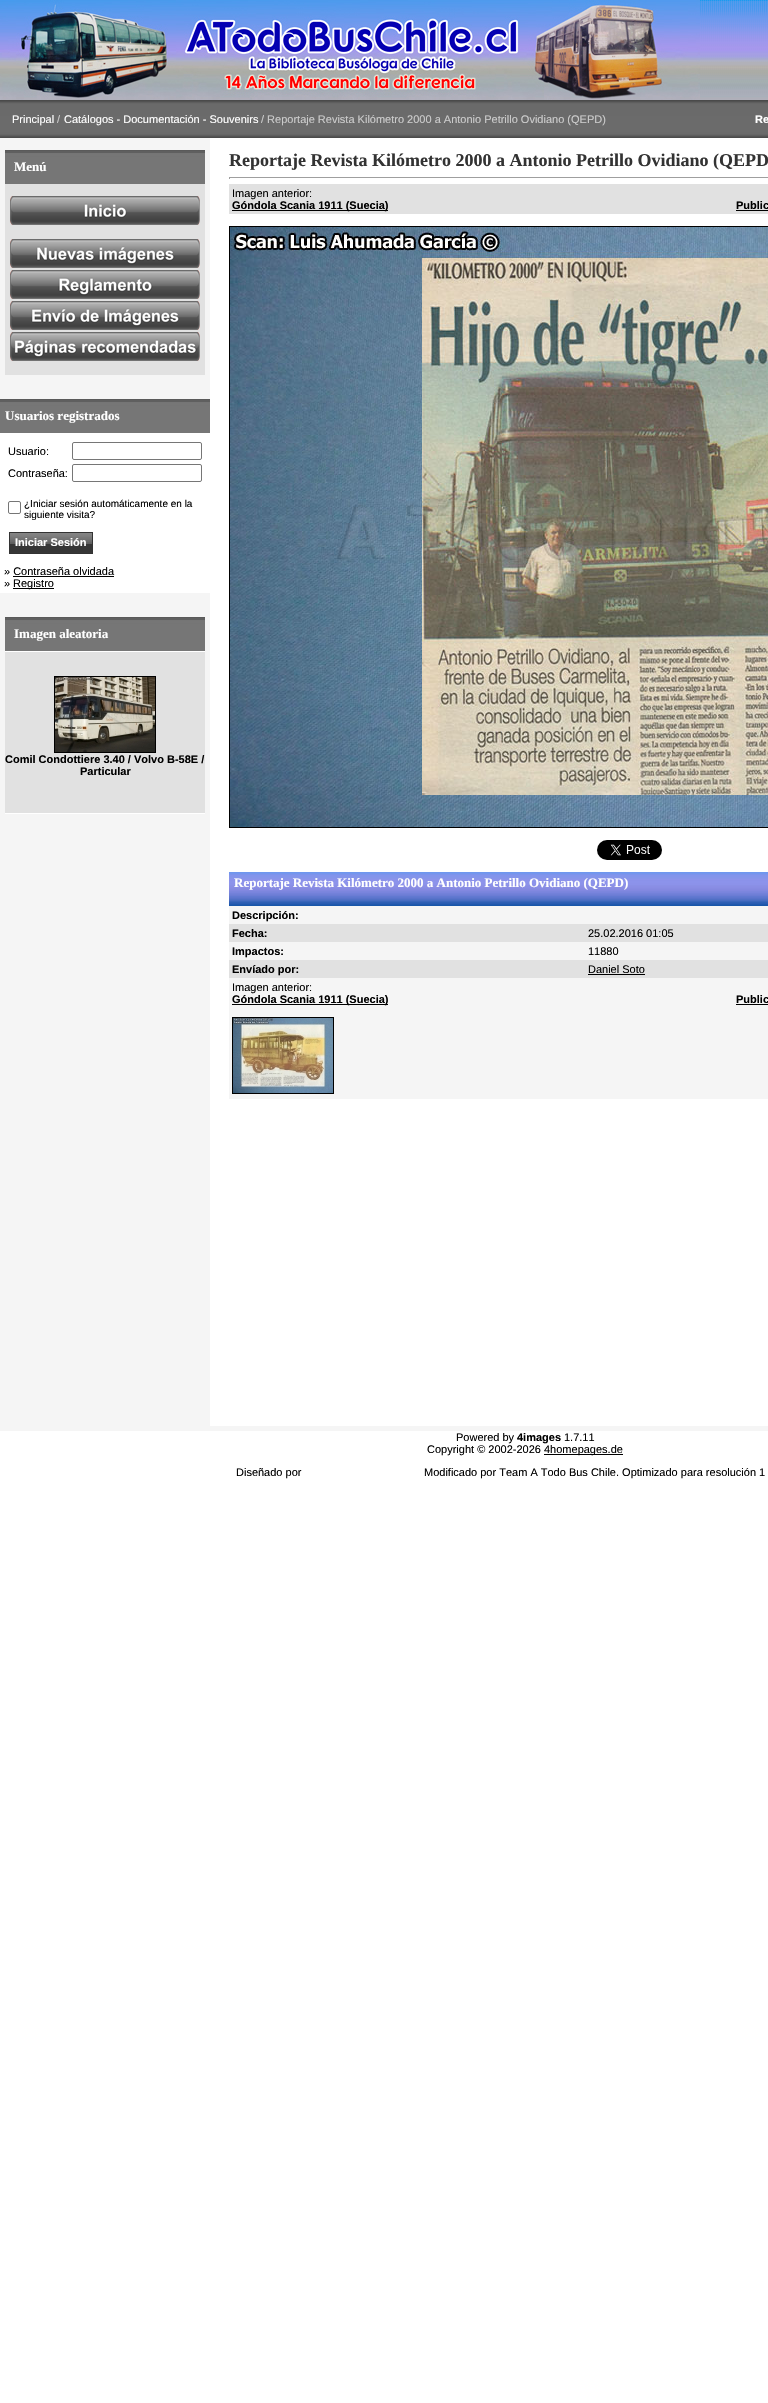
#include "include/core/SkBlurTypes.h"
#include "include/core/SkCanvas.h"
#include "include/core/SkData.h"
#include "include/core/SkFont.h"
#include "include/core/SkFontMgr.h"
#include "include/core/SkImage.h"
#include "include/core/SkMaskFilter.h"
#include "include/core/SkPaint.h"
#include "include/core/SkPathBuilder.h"
#include "include/core/SkTextBlob.h"
#include "include/effects/SkDashPathEffect.h"
#include "include/effects/SkGradientShader.h"
#include "include/utils/SkParsePath.h"

extern sk_sp<SkFontMgr> fontMgr;

void draw(SkCanvas* canvas) {
  SkPaint p;
  p.setAntiAlias(true);
  canvas->clear(SK_ColorWHITE);
  canvas->drawImageRect(SkImages::DeferredFromEncodedData(SkData::MakeFromFileName("images/1.png")), SkRect::MakeLTRB(700, 0, 768, 100), SkSamplingOptions());
  canvas->drawImageRect(SkImages::DeferredFromEncodedData(SkData::MakeFromFileName("images/2.png")), SkRect::MakeLTRB(0, 0, 700, 100), SkSamplingOptions());
  canvas->drawImageRect(SkImages::DeferredFromEncodedData(SkData::MakeFromFileName("images/3.png")), SkRect::MakeLTRB(0, 100, 768, 138), SkSamplingOptions());
  p.setColor(SkColorSetRGB(245, 245, 245));
  canvas->drawRect(SkRect::MakeLTRB(0, 138, 210, 1426), p);
  canvas->drawImageRect(SkImages::DeferredFromEncodedData(SkData::MakeFromFileName("images/4.png")), SkRect::MakeLTRB(5, 150, 205, 184), SkSamplingOptions());
  p.setColor(SkColorSetRGB(225, 225, 225));
  canvas->drawRect(SkRect::MakeLTRB(5, 184, 205, 375), p);
  canvas->drawImageRect(SkImages::DeferredFromEncodedData(SkData::MakeFromFileName("images/5.png")), SkRect::MakeLTRB(10, 196, 200, 225), SkSamplingOptions());
  canvas->drawImageRect(SkImages::DeferredFromEncodedData(SkData::MakeFromFileName("images/6.png")), SkRect::MakeLTRB(10, 239, 200, 268), SkSamplingOptions());
  canvas->drawImageRect(SkImages::DeferredFromEncodedData(SkData::MakeFromFileName("images/7.png")), SkRect::MakeLTRB(10, 270, 200, 299), SkSamplingOptions());
  canvas->drawImageRect(SkImages::DeferredFromEncodedData(SkData::MakeFromFileName("images/8.png")), SkRect::MakeLTRB(10, 301, 200, 330), SkSamplingOptions());
  canvas->drawImageRect(SkImages::DeferredFromEncodedData(SkData::MakeFromFileName("images/9.png")), SkRect::MakeLTRB(10, 332, 200, 361), SkSamplingOptions());
  p.setColor(SK_ColorWHITE);
  canvas->drawRect(SkRect::MakeLTRB(0, 433, 210, 593), p);
  canvas->drawImageRect(SkImages::DeferredFromEncodedData(SkData::MakeFromFileName("images/10.png")), SkRect::MakeLTRB(0, 399, 210, 433), SkSamplingOptions());
  p.setStyle(SkPaint::kStroke_Style);
  p.setStrokeWidth(1);
  p.setColor(SkColorSetRGB(118, 118, 118));
  canvas->drawRoundRect(SkRect::MakeLTRB(72.5f, 442.5f, 201.5f, 459.5f), 1.5f, 1.5f, p);
  canvas->drawRoundRect(SkRect::MakeLTRB(72.5f, 464.5f, 201.5f, 481.5f), 1.5f, 1.5f, p);
  canvas->drawRoundRect(SkRect::MakeLTRB(8.5f, 501.5f, 20.5f, 513.5f), 1.5f, 1.5f, p);
  canvas->drawImageRect(SkImages::DeferredFromEncodedData(SkData::MakeFromFileName("images/11.png")), SkRect::MakeLTRB(10, 533, 92, 553), SkSamplingOptions());
  p.setColor(SkColorSetRGB(51, 51, 51));
  canvas->drawRect(SkRect::MakeLTRB(9.5f, 532.5f, 92.5f, 553.5f), p);
  p.setStyle(SkPaint::kFill_Style);
  p.setColor(SK_ColorBLACK);
  canvas->drawRect(SkRect::MakeLTRB(13, 576, 114, 577), p);
  canvas->drawRect(SkRect::MakeLTRB(13, 588, 54, 589), p);
  canvas->drawImageRect(SkImages::DeferredFromEncodedData(SkData::MakeFromFileName("images/4.png")), SkRect::MakeLTRB(5, 617, 205, 651), SkSamplingOptions());
  p.setColor(SK_ColorWHITE);
  canvas->drawRect(SkRect::MakeLTRB(5, 651, 205, 652), p);
  p.setColor(SkColorSetRGB(225, 225, 225));
  canvas->drawRect(SkRect::MakeLTRB(5, 652, 205, 813), p);
  p.setStyle(SkPaint::kStroke_Style);
  p.setColor(SK_ColorBLACK);
  canvas->drawRect(SkRect::MakeLTRB(54.5f, 676.5f, 155.5f, 752.5f), p);
  canvas->drawImageRect(SkImages::DeferredFromEncodedData(SkData::MakeFromFileName("images/12.png")), SkRect::MakeLTRB(55, 677, 155, 752), SkSamplingOptions());
  p.setStyle(SkPaint::kFill_Style);
  p.setColor(SK_ColorWHITE);
  canvas->drawRect(SkRect::MakeLTRB(5, 813, 205, 814), p);
  p.setColor(SkColorSetRGB(159, 159, 159));
  canvas->drawRect(SkRect::MakeLTRB(229, 177, 768, 178), p);
  canvas->drawRect(SkRect::MakeLTRB(229, 177, 230, 179), p);
  p.setColor(SkColorSetRGB(225, 225, 225));
  canvas->drawRect(SkRect::MakeLTRB(229, 184, 768, 214), p);
  p.setColor(SK_ColorBLACK);
  canvas->drawRect(SkRect::MakeLTRB(232, 210, 388, 211), p);
  canvas->drawRect(SkRect::MakeLTRB(736, 210, 768, 211), p);
  p.setStyle(SkPaint::kStroke_Style);
  canvas->drawRect(SkRect::MakeLTRB(229.5f, 226.5f, 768.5f, 827.5f), p);
  canvas->drawImageRect(SkImages::DeferredFromEncodedData(SkData::MakeFromFileName("images/13.png")), SkRect::MakeLTRB(230, 227, 768, 827), SkSamplingOptions());
  canvas->drawImageRect(SkImages::DeferredFromEncodedData(SkData::MakeFromFileName("images/14.png")), SkRect::MakeLTRB(597, 840, 662, 860), SkSamplingOptions());
  canvas->drawImageRect(SkImages::DeferredFromEncodedData(SkData::MakeFromFileName("images/15.png")), SkRect::MakeLTRB(229, 872, 768, 906), SkSamplingOptions());
  p.setStyle(SkPaint::kFill_Style);
  p.setColor(SkColorSetRGB(245, 245, 245));
  canvas->drawRect(SkRect::MakeLTRB(229, 906, 768, 924), p);
  p.setColor(SkColorSetRGB(225, 225, 225));
  canvas->drawRect(SkRect::MakeLTRB(229, 924, 768, 942), p);
  p.setColor(SkColorSetRGB(245, 245, 245));
  canvas->drawRect(SkRect::MakeLTRB(229, 942, 768, 960), p);
  p.setColor(SkColorSetRGB(225, 225, 225));
  canvas->drawRect(SkRect::MakeLTRB(229, 960, 768, 978), p);
  p.setColor(SK_ColorBLACK);
  canvas->drawRect(SkRect::MakeLTRB(588, 974, 645, 975), p);
  p.setColor(SkColorSetRGB(245, 245, 245));
  canvas->drawRect(SkRect::MakeLTRB(229, 978, 768, 1099), p);
  p.setColor(SK_ColorBLACK);
  canvas->drawRect(SkRect::MakeLTRB(232, 1004, 388, 1005), p);
  p.setStyle(SkPaint::kStroke_Style);
  canvas->drawRect(SkRect::MakeLTRB(232.5f, 1017.5f, 333.5f, 1093.5f), p);
  canvas->drawImageRect(SkImages::DeferredFromEncodedData(SkData::MakeFromFileName("images/16.png")), SkRect::MakeLTRB(233, 1018, 333, 1093), SkSamplingOptions());
  p.setStyle(SkPaint::kFill_Style);
  canvas->drawRect(SkRect::MakeLTRB(736, 1004, 768, 1005), p);
  p.setColor(SkColorSetRGB(245, 245, 245));
  canvas->drawRect(SkRect::MakeLTRB(0, 1426, 768, 1431), p);
  p.setColor(SK_ColorBLACK);
  canvas->drawRect(SkRect::MakeLTRB(544, 1454, 623, 1455), p);
  SkFont font1(fontMgr->matchFamilyStyle("Liberation Sans", SkFontStyle::Normal()), 11);
  font1.setSubpixel(true);
  p.setColor(SK_ColorWHITE);
  canvas->drawString("Principal", 12, 123, font1, p);
  p.setColor(SkColorSetRGB(204, 204, 204));
  canvas->drawString("/", 57, 123, font1, p);
  p.setColor(SK_ColorWHITE);
  canvas->drawString("Catálogos - Documentación - Souvenirs", 64, 123, font1, p);
  p.setColor(SkColorSetRGB(204, 204, 204));
  canvas->drawString("/ Reportaje Revista Kilómetro 2000 a Antonio Petrillo Ovidiano (QEPD)", 261, 123, font1, p);
  SkFont font2(fontMgr->matchFamilyStyle("Liberation Sans", SkFontStyle::Bold()), 11);
  font2.setSubpixel(true);
  p.setColor(SK_ColorWHITE);
  canvas->drawString("Re", 755, 123, font2, p);
  SkFont font3(fontMgr->matchFamilyStyle("Liberation Serif", SkFontStyle::Bold()), 13);
  font3.setSubpixel(true);
  canvas->drawString("Menú", 14, 171, font3, p);
  canvas->drawString("Usuarios registrados", 5, 420, font3, p);
  p.setColor(SK_ColorBLACK);
  canvas->drawString("Usuario:", 8, 455, font1, p);
  canvas->drawString("Contraseña:", 8, 477, font1, p);
  SkFont font4(fontMgr->matchFamilyStyle("Liberation Sans", SkFontStyle::Normal()), 10);
  font4.setSubpixel(true);
  canvas->drawString("¿Iniciar sesión automáticamente en la", 24, 507, font4, p);
  canvas->drawString("siguiente visita?", 24, 518, font4, p);
  p.setColor(SK_ColorWHITE);
  canvas->drawString("Iniciar Sesión", 15, 546, font2, p);
  p.setColor(SK_ColorBLACK);
  canvas->drawString("» Contraseña olvidada", 4, 575, font1, p);
  canvas->drawString("»", 4, 587, font1, p);
  canvas->drawString("Registro", 13, 587, font1, p);
  p.setColor(SK_ColorWHITE);
  canvas->drawString("Imagen aleatoria", 14, 638, font3, p);
  p.setColor(SK_ColorBLACK);
  canvas->drawString("Comil Condottiere 3.40 / Volvo B-58E /", 5, 763, font2, p);
  canvas->drawString("Particular", 80, 775, font2, p);
  SkFont font5(fontMgr->matchFamilyStyle("Liberation Serif", SkFontStyle::Bold()), 18);
  font5.setSubpixel(true);
  p.setColor(SkColorSetRGB(51, 51, 51));
  canvas->drawString("Reportaje Revista Kilómetro 2000 a Antonio Petrillo Ovidiano (QEPD", 229, 166, font5, p);
  p.setColor(SK_ColorBLACK);
  canvas->drawString("Imagen anterior:", 232, 197, font1, p);
  canvas->drawString("Góndola Scania 1911 (Suecia)", 232, 209, font2, p);
  canvas->drawString("Public", 736, 209, font2, p);
  p.setColor(SK_ColorWHITE);
  canvas->drawString("Reportaje Revista Kilómetro 2000 a Antonio Petrillo Ovidiano (QEPD)", 234, 887, font3, p);
  p.setColor(SK_ColorBLACK);
  canvas->drawString("Descripción:", 232, 919, font2, p);
  canvas->drawString("Fecha:", 232, 937, font2, p);
  canvas->drawString("25.02.2016 01:05", 588, 937, font1, p);
  canvas->drawString("Impactos:", 232, 955, font2, p);
  canvas->drawString("11880", 588, 955, font1, p);
  canvas->drawString("Envíado por:", 232, 973, font2, p);
  canvas->drawString("Daniel Soto", 588, 973, font1, p);
  canvas->drawString("Imagen anterior:", 232, 991, font1, p);
  canvas->drawString("Góndola Scania 1911 (Suecia)", 232, 1003, font2, p);
  canvas->drawString("Public", 736, 1003, font2, p);
  canvas->drawString("Powered by", 456, 1441, font1, p);
  canvas->drawString("4images", 517, 1441, font2, p);
  canvas->drawString("1.7.11", 564, 1441, font1, p);
  canvas->drawString("Copyright © 2002-2026", 427, 1453, font1, p);
  canvas->drawString("4homepages.de", 544, 1453, font1, p);
  canvas->drawString("Diseñado por", 236, 1476, font1, p);
  canvas->drawString("Modificado por Team A Todo Bus Chile. Optimizado para resolución 1", 424, 1476, font1, p);
}
